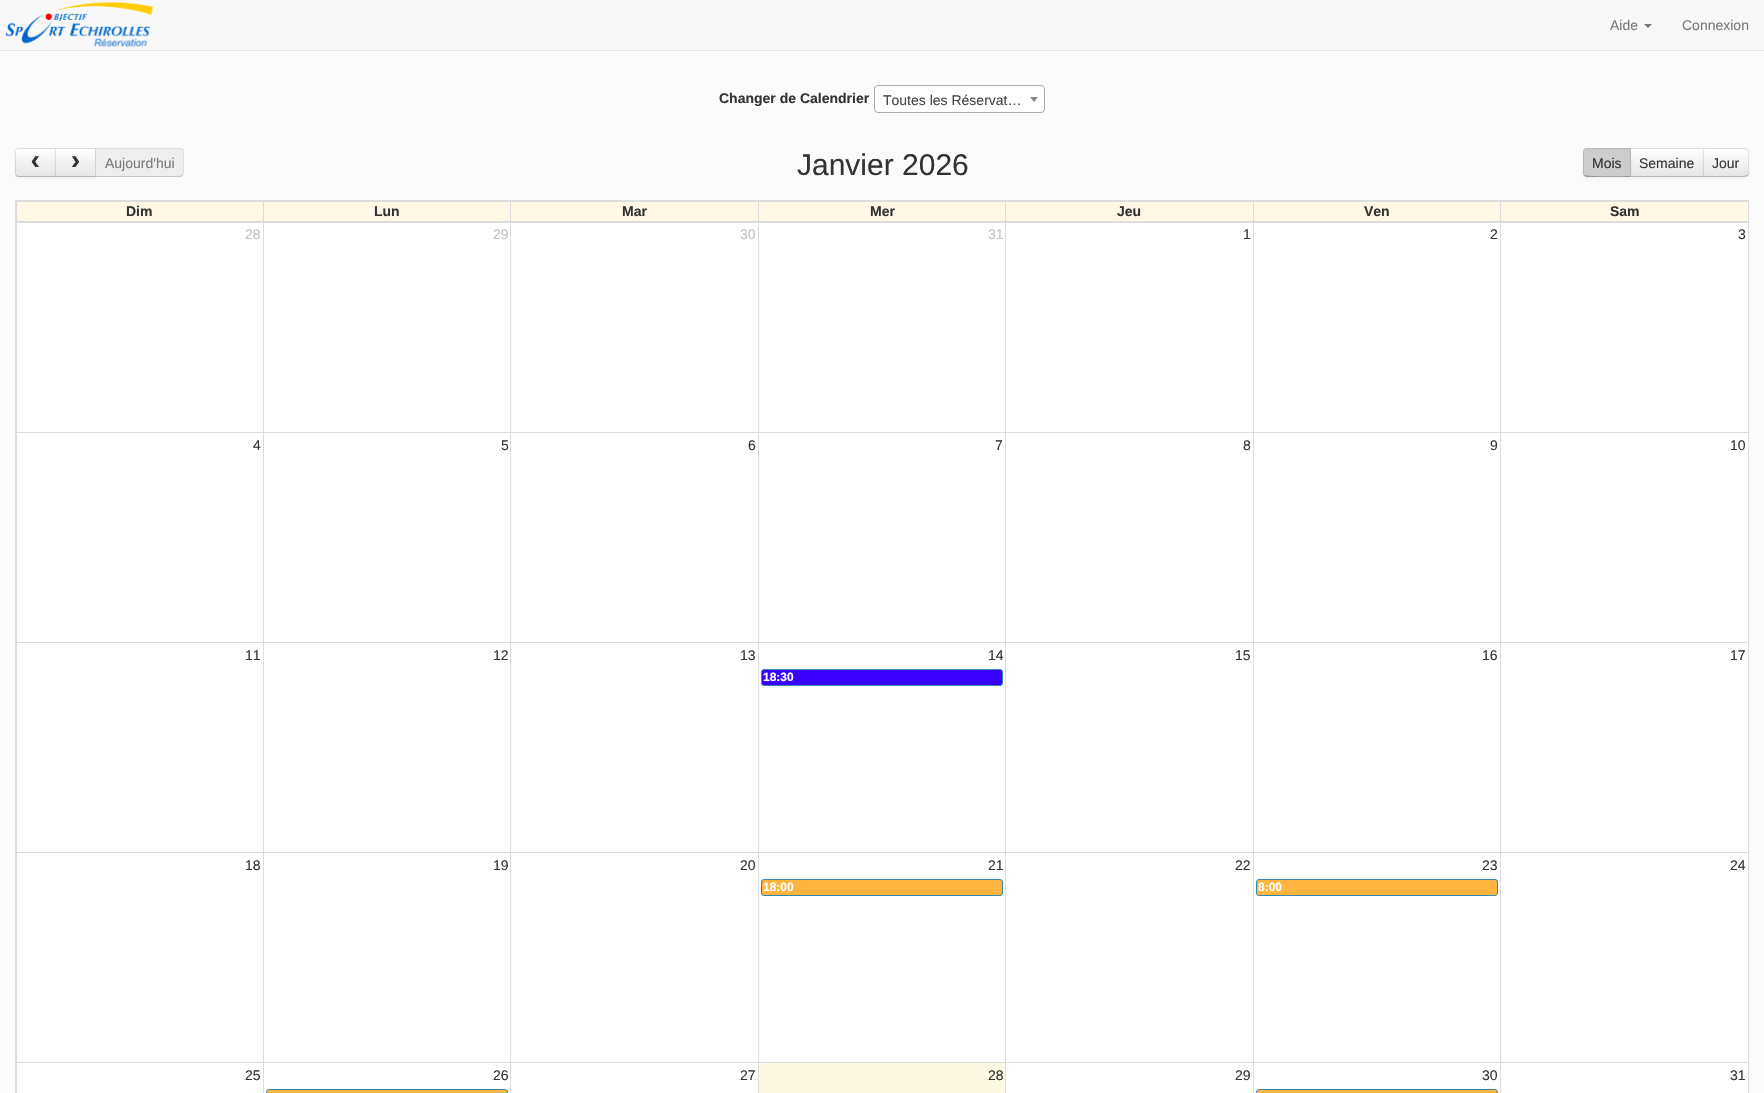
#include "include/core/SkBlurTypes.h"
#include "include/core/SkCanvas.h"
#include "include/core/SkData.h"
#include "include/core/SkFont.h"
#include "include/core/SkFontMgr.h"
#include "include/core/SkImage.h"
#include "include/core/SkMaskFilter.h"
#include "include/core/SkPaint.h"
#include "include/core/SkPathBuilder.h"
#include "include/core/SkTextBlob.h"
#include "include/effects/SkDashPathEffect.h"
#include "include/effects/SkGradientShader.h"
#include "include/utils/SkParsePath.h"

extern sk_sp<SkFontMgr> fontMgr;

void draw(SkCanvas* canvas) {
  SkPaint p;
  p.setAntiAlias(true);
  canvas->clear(SkColorSetRGB(251, 251, 251));
  p.setColor(SkColorSetRGB(248, 248, 248));
  canvas->drawRect(SkRect::MakeLTRB(0, 0, 1764, 50), p);
  p.setColor(SkColorSetRGB(231, 231, 231));
  canvas->drawRect(SkRect::MakeLTRB(0, 50, 1764, 51), p);
  canvas->drawImageRect(SkImages::DeferredFromEncodedData(SkData::MakeFromFileName("images/1.png")), SkRect::MakeLTRB(5, 1, 154, 47), SkSamplingOptions());
  p.setColor(SkColorSetRGB(119, 119, 119));
  canvas->drawPath(SkPathBuilder().moveTo(1644, 24).lineTo(1652, 24).lineTo(1648, 28).close().detach(), p);
  p.setColor(SK_ColorWHITE);
  canvas->drawRoundRect(SkRect::MakeLTRB(874.5f, 85.5f, 1044.5f, 112.5f), 3.5f, 3.5f, p);
  p.setStyle(SkPaint::kStroke_Style);
  p.setStrokeWidth(1);
  p.setColor(SkColorSetRGB(170, 170, 170));
  canvas->drawRoundRect(SkRect::MakeLTRB(874.5f, 85.5f, 1044.5f, 112.5f), 3.5f, 3.5f, p);
  p.setStyle(SkPaint::kFill_Style);
  p.setColor(SkColorSetRGB(136, 136, 136));
  canvas->drawPath(SkPathBuilder().moveTo(1030, 97).lineTo(1038, 97).lineTo(1034, 102).close().detach(), p);
  p.setColor(SkColorSetARGB(13, 0, 0, 0));
  p.setMaskFilter(SkMaskFilter::MakeBlur(kNormal_SkBlurStyle, 1));
  canvas->drawRoundRect(SkRect::MakeLTRB(15, 149, 56, 178), 4, 4, p);
  p.setMaskFilter(nullptr);
  p.setColor(SkColorSetRGB(245, 245, 245));
  canvas->drawPath(SkPathBuilder().moveTo(19, 148).lineTo(56, 148).lineTo(56, 177).lineTo(19, 177).cubicTo(17, 177, 15, 175, 15, 173).lineTo(15, 152).cubicTo(15, 150, 17, 148, 19, 148).close().detach(), p);
  canvas->save();
  canvas->clipPath(SkPathBuilder().moveTo(19, 148).lineTo(56, 148).lineTo(56, 177).lineTo(19, 177).cubicTo(17, 177, 15, 175, 15, 173).lineTo(15, 152).cubicTo(15, 150, 17, 148, 19, 148).close().detach(), true);
  {
    const SkColor colors[] = {SK_ColorWHITE, SkColorSetRGB(230, 230, 230)};
    const float stops[] = {0, 1};
    const SkPoint ends[] = {{36, 149}, {36, 176}};
    p.setShader(SkGradientShader::MakeLinear(ends, colors, stops, 2, SkTileMode::kClamp));
    p.setAlpha(255);
  }
  canvas->drawRect(SkRect::MakeLTRB(15, 149, 55, 176), p);
  canvas->restore();
  p.setShader(nullptr);
  p.setColor(SkColorSetARGB(26, 0, 0, 0));
  canvas->drawPath(SkPathBuilder().moveTo(19, 148).cubicTo(18, 148, 17, 148.5f, 16, 149).lineTo(17, 150).cubicTo(17, 149, 18, 149, 19, 149).lineTo(55, 149).lineTo(56, 148).close().detach(), p);
  p.setColor(SkColorSetARGB(64, 0, 0, 0));
  canvas->drawPath(SkPathBuilder().moveTo(56, 177).lineTo(55, 176).lineTo(19, 176).cubicTo(18, 176, 17, 176, 17, 175).lineTo(16, 176).cubicTo(17, 176.5f, 18, 177, 19, 177).close().detach(), p);
  p.setColor(SkColorSetARGB(26, 0, 0, 0));
  canvas->drawPath(SkPathBuilder().moveTo(15, 152).lineTo(15, 173).cubicTo(15, 174, 15.5f, 175, 16, 176).lineTo(17, 175).cubicTo(16, 175, 16, 174, 16, 173).lineTo(16, 152).cubicTo(16, 151, 16, 150, 17, 150).lineTo(16, 149).cubicTo(15.5f, 150, 15, 151, 15, 152).close().detach(), p);
  p.setColor(SkColorSetARGB(13, 0, 0, 0));
  p.setMaskFilter(SkMaskFilter::MakeBlur(kNormal_SkBlurStyle, 1));
  canvas->drawRect(SkRect::MakeLTRB(55, 149, 96, 178), p);
  p.setMaskFilter(nullptr);
  p.setColor(SkColorSetRGB(245, 245, 245));
  canvas->drawRect(SkRect::MakeLTRB(55, 148, 96, 177), p);
  {
    const SkColor colors[] = {SK_ColorWHITE, SkColorSetRGB(230, 230, 230)};
    const float stops[] = {0, 1};
    const SkPoint ends[] = {{76, 149}, {76, 176}};
    p.setShader(SkGradientShader::MakeLinear(ends, colors, stops, 2, SkTileMode::kClamp));
    p.setAlpha(255);
  }
  canvas->drawRect(SkRect::MakeLTRB(55, 149, 96, 176), p);
  p.setShader(nullptr);
  p.setColor(SkColorSetRGB(221, 221, 221));
  canvas->drawPath(SkPathBuilder().moveTo(55, 148).lineTo(96, 148).lineTo(95, 149).lineTo(56, 149).close().detach(), p);
  p.setColor(SkColorSetARGB(26, 0, 0, 0));
  canvas->drawPath(SkPathBuilder().moveTo(96, 148).lineTo(96, 177).lineTo(95, 176).lineTo(95, 149).close().detach(), p);
  p.setColor(SkColorSetARGB(64, 0, 0, 0));
  canvas->drawPath(SkPathBuilder().moveTo(96, 177).lineTo(55, 177).lineTo(56, 176).lineTo(95, 176).close().detach(), p);
  p.setColor(SkColorSetARGB(26, 0, 0, 0));
  canvas->drawPath(SkPathBuilder().moveTo(55, 177).lineTo(55, 148).lineTo(56, 149).lineTo(56, 176).close().detach(), p);
  p.setColor(SkColorSetARGB(166, 230, 230, 230));
  canvas->drawPath(SkPathBuilder().moveTo(95, 148).lineTo(180, 148).cubicTo(182, 148, 184, 150, 184, 152).lineTo(184, 173).cubicTo(184, 175, 182, 177, 180, 177).lineTo(95, 177).close().detach(), p);
  p.setColor(SkColorSetARGB(26, 88, 88, 88));
  canvas->drawPath(SkPathBuilder().moveTo(95, 148).lineTo(96, 149).lineTo(180, 149).lineTo(182, 150).lineTo(183, 149).lineTo(180, 148).close().detach(), p);
  canvas->drawPath(SkPathBuilder().moveTo(184, 173).lineTo(184, 152).cubicTo(184, 151, 183.5f, 150, 183, 149).lineTo(182, 150).cubicTo(183, 150, 183, 151, 183, 152).lineTo(183, 173).cubicTo(183, 174, 183, 175, 182, 175).lineTo(183, 176).cubicTo(183.5f, 175, 184, 174, 184, 173).close().detach(), p);
  p.setColor(SkColorSetARGB(41, 0, 0, 0));
  canvas->drawPath(SkPathBuilder().moveTo(180, 177).lineTo(183, 176).lineTo(182, 175).lineTo(180, 176).lineTo(96, 176).lineTo(95, 177).close().detach(), p);
  p.setColor(SkColorSetARGB(18, 0, 0, 0));
  canvas->drawPath(SkPathBuilder().moveTo(95, 148).lineTo(95, 177).lineTo(96, 176).lineTo(96, 149).close().detach(), p);
  p.setColor(SkColorSetARGB(13, 0, 0, 0));
  p.setMaskFilter(SkMaskFilter::MakeBlur(kNormal_SkBlurStyle, 1));
  canvas->drawRect(SkRect::MakeLTRB(1630, 149, 1704, 178), p);
  p.setMaskFilter(nullptr);
  p.setColor(SkColorSetRGB(245, 245, 245));
  canvas->drawRect(SkRect::MakeLTRB(1631, 176, 1703, 177), p);
  {
    const SkColor colors[] = {SK_ColorWHITE, SkColorSetRGB(230, 230, 230)};
    const float stops[] = {0, 1};
    const SkPoint ends[] = {{1667, 149}, {1667, 176}};
    p.setShader(SkGradientShader::MakeLinear(ends, colors, stops, 2, SkTileMode::kClamp));
    p.setAlpha(255);
  }
  canvas->drawRect(SkRect::MakeLTRB(1631, 149, 1703, 176), p);
  p.setShader(nullptr);
  p.setColor(SkColorSetRGB(221, 221, 221));
  canvas->drawPath(SkPathBuilder().moveTo(1630, 148).lineTo(1704, 148).lineTo(1703, 149).lineTo(1631, 149).close().detach(), p);
  p.setColor(SkColorSetARGB(64, 0, 0, 0));
  canvas->drawPath(SkPathBuilder().moveTo(1704, 177).lineTo(1630, 177).lineTo(1631, 176).lineTo(1703, 176).close().detach(), p);
  p.setColor(SkColorSetARGB(13, 0, 0, 0));
  p.setMaskFilter(SkMaskFilter::MakeBlur(kNormal_SkBlurStyle, 1));
  canvas->drawRoundRect(SkRect::MakeLTRB(1583, 149, 1631, 178), 4, 4, p);
  p.setMaskFilter(nullptr);
  p.setColor(SkColorSetRGB(204, 204, 204));
  canvas->drawPath(SkPathBuilder().moveTo(1587, 148).lineTo(1631, 148).lineTo(1631, 177).lineTo(1587, 177).cubicTo(1585, 177, 1583, 175, 1583, 173).lineTo(1583, 152).cubicTo(1583, 150, 1585, 148, 1587, 148).close().detach(), p);
  p.setColor(SkColorSetARGB(26, 0, 0, 0));
  canvas->drawPath(SkPathBuilder().moveTo(1587, 148).lineTo(1584, 149).lineTo(1585, 150).cubicTo(1587, 148, 1625, 149, 1630, 149).lineTo(1631, 148).close().detach(), p);
  canvas->drawPath(SkPathBuilder().moveTo(1631, 148).lineTo(1630, 149).lineTo(1630, 176).lineTo(1631, 177).close().detach(), p);
  p.setColor(SkColorSetARGB(64, 0, 0, 0));
  canvas->drawPath(SkPathBuilder().moveTo(1631, 177).lineTo(1630, 176).cubicTo(1625, 176, 1587, 177, 1585, 175).lineTo(1584, 176).lineTo(1587, 177).close().detach(), p);
  p.setColor(SkColorSetARGB(26, 0, 0, 0));
  canvas->drawPath(SkPathBuilder().moveTo(1583, 152).lineTo(1583, 173).cubicTo(1583, 174, 1583.5f, 175, 1584, 176).lineTo(1585, 175).cubicTo(1584, 175, 1584, 174, 1584, 173).lineTo(1584, 152).cubicTo(1584, 151, 1584, 150, 1585, 150).lineTo(1584, 149).cubicTo(1583.5f, 150, 1583, 151, 1583, 152).close().detach(), p);
  p.setColor(SkColorSetARGB(13, 0, 0, 0));
  p.setMaskFilter(SkMaskFilter::MakeBlur(kNormal_SkBlurStyle, 1));
  canvas->drawRoundRect(SkRect::MakeLTRB(1703, 149, 1749, 178), 4, 4, p);
  p.setMaskFilter(nullptr);
  p.setColor(SkColorSetRGB(245, 245, 245));
  canvas->drawPath(SkPathBuilder().moveTo(1703, 148).lineTo(1745, 148).cubicTo(1747, 148, 1749, 150, 1749, 152).lineTo(1749, 173).cubicTo(1749, 175, 1747, 177, 1745, 177).lineTo(1703, 177).close().detach(), p);
  canvas->save();
  canvas->clipPath(SkPathBuilder().moveTo(1703, 148).lineTo(1745, 148).cubicTo(1747, 148, 1749, 150, 1749, 152).lineTo(1749, 173).cubicTo(1749, 175, 1747, 177, 1745, 177).lineTo(1703, 177).close().detach(), true);
  {
    const SkColor colors[] = {SK_ColorWHITE, SkColorSetRGB(230, 230, 230)};
    const float stops[] = {0, 1};
    const SkPoint ends[] = {{1726, 149}, {1726, 176}};
    p.setShader(SkGradientShader::MakeLinear(ends, colors, stops, 2, SkTileMode::kClamp));
    p.setAlpha(255);
  }
  canvas->drawRect(SkRect::MakeLTRB(1703, 149, 1749, 176), p);
  canvas->restore();
  p.setShader(nullptr);
  p.setColor(SkColorSetARGB(26, 0, 0, 0));
  canvas->drawPath(SkPathBuilder().moveTo(1703, 148).lineTo(1704, 149).lineTo(1738, 149).cubicTo(1743, 149, 1746, 149, 1747, 150).lineTo(1748, 149).cubicTo(1746, 148, 1744, 148, 1738, 148).close().detach(), p);
  canvas->drawPath(SkPathBuilder().moveTo(1749, 174).lineTo(1748, 176).lineTo(1747, 175).cubicTo(1749.5f, 173.5f, 1748, 164.5f, 1748, 162).cubicTo(1748, 160, 1749, 151, 1747, 150).lineTo(1748, 149).lineTo(1749, 150.5f).close().detach(), p);
  p.setColor(SkColorSetARGB(64, 0, 0, 0));
  canvas->drawPath(SkPathBuilder().moveTo(1738, 177).cubicTo(1743, 177, 1746, 177, 1748, 176).lineTo(1747, 175).cubicTo(1746, 176, 1743, 176, 1738, 176).lineTo(1704, 176).lineTo(1703, 177).close().detach(), p);
  p.setColor(SkColorSetARGB(26, 0, 0, 0));
  canvas->drawPath(SkPathBuilder().moveTo(1703, 148).lineTo(1703, 177).lineTo(1704, 176).lineTo(1704, 149).close().detach(), p);
  p.setColor(SkColorSetRGB(221, 221, 221));
  canvas->drawRect(SkRect::MakeLTRB(15, 200, 1749, 201), p);
  canvas->drawRect(SkRect::MakeLTRB(15, 221, 1749, 222), p);
  canvas->drawRect(SkRect::MakeLTRB(1748, 221, 1749, 1093), p);
  canvas->drawRect(SkRect::MakeLTRB(1748, 200, 1749, 222), p);
  canvas->drawRect(SkRect::MakeLTRB(15, 221, 16, 1093), p);
  canvas->drawRect(SkRect::MakeLTRB(15, 200, 16, 222), p);
  p.setColor(SkColorSetRGB(255, 248, 231));
  canvas->drawRect(SkRect::MakeLTRB(17, 202, 263, 221), p);
  p.setColor(SkColorSetRGB(221, 221, 221));
  canvas->drawRect(SkRect::MakeLTRB(1500, 201, 1749, 202), p);
  canvas->drawRect(SkRect::MakeLTRB(1500, 201, 1501, 222), p);
  canvas->drawRect(SkRect::MakeLTRB(1253, 201, 1501, 202), p);
  canvas->drawRect(SkRect::MakeLTRB(1253, 201, 1254, 222), p);
  canvas->drawRect(SkRect::MakeLTRB(1005, 201, 1254, 202), p);
  canvas->drawRect(SkRect::MakeLTRB(1005, 201, 1006, 222), p);
  canvas->drawRect(SkRect::MakeLTRB(758, 201, 1006, 202), p);
  canvas->drawRect(SkRect::MakeLTRB(758, 201, 759, 222), p);
  canvas->drawRect(SkRect::MakeLTRB(510, 201, 759, 202), p);
  canvas->drawRect(SkRect::MakeLTRB(510, 201, 511, 222), p);
  canvas->drawRect(SkRect::MakeLTRB(263, 201, 511, 202), p);
  canvas->drawRect(SkRect::MakeLTRB(263, 201, 264, 222), p);
  canvas->drawRect(SkRect::MakeLTRB(16, 201, 264, 202), p);
  canvas->drawRect(SkRect::MakeLTRB(16, 201, 17, 222), p);
  p.setColor(SkColorSetRGB(255, 248, 231));
  canvas->drawRect(SkRect::MakeLTRB(264, 202, 510, 221), p);
  canvas->drawRect(SkRect::MakeLTRB(511, 202, 758, 221), p);
  canvas->drawRect(SkRect::MakeLTRB(759, 202, 1005, 221), p);
  canvas->drawRect(SkRect::MakeLTRB(1006, 202, 1253, 221), p);
  canvas->drawRect(SkRect::MakeLTRB(1254, 202, 1500, 221), p);
  canvas->drawRect(SkRect::MakeLTRB(1501, 202, 1748, 221), p);
  p.setColor(SK_ColorWHITE);
  canvas->drawRect(SkRect::MakeLTRB(17, 223, 263, 432), p);
  p.setColor(SkColorSetRGB(221, 221, 221));
  canvas->drawRect(SkRect::MakeLTRB(1500, 222, 1748, 223), p);
  canvas->drawRect(SkRect::MakeLTRB(1500, 432, 1748, 433), p);
  canvas->drawRect(SkRect::MakeLTRB(1500, 222, 1501, 433), p);
  canvas->drawRect(SkRect::MakeLTRB(1253, 222, 1501, 223), p);
  canvas->drawRect(SkRect::MakeLTRB(1253, 432, 1501, 433), p);
  canvas->drawRect(SkRect::MakeLTRB(1253, 222, 1254, 433), p);
  canvas->drawRect(SkRect::MakeLTRB(1005, 222, 1254, 223), p);
  canvas->drawRect(SkRect::MakeLTRB(1005, 432, 1254, 433), p);
  canvas->drawRect(SkRect::MakeLTRB(1005, 222, 1006, 433), p);
  canvas->drawRect(SkRect::MakeLTRB(758, 222, 1006, 223), p);
  canvas->drawRect(SkRect::MakeLTRB(758, 432, 1006, 433), p);
  canvas->drawRect(SkRect::MakeLTRB(758, 222, 759, 433), p);
  canvas->drawRect(SkRect::MakeLTRB(510, 222, 759, 223), p);
  canvas->drawRect(SkRect::MakeLTRB(510, 432, 759, 433), p);
  canvas->drawRect(SkRect::MakeLTRB(510, 222, 511, 433), p);
  canvas->drawRect(SkRect::MakeLTRB(263, 222, 511, 223), p);
  canvas->drawRect(SkRect::MakeLTRB(263, 432, 511, 433), p);
  canvas->drawRect(SkRect::MakeLTRB(263, 222, 264, 433), p);
  canvas->drawRect(SkRect::MakeLTRB(16, 222, 264, 223), p);
  canvas->drawRect(SkRect::MakeLTRB(16, 432, 264, 433), p);
  canvas->drawRect(SkRect::MakeLTRB(16, 222, 17, 433), p);
  p.setColor(SK_ColorWHITE);
  canvas->drawRect(SkRect::MakeLTRB(264, 223, 510, 432), p);
  canvas->drawRect(SkRect::MakeLTRB(511, 223, 758, 432), p);
  canvas->drawRect(SkRect::MakeLTRB(759, 223, 1005, 432), p);
  canvas->drawRect(SkRect::MakeLTRB(1006, 223, 1253, 432), p);
  canvas->drawRect(SkRect::MakeLTRB(1254, 223, 1500, 432), p);
  canvas->drawRect(SkRect::MakeLTRB(1501, 223, 1748, 432), p);
  canvas->drawRect(SkRect::MakeLTRB(17, 433, 263, 642), p);
  p.setColor(SkColorSetRGB(221, 221, 221));
  canvas->drawRect(SkRect::MakeLTRB(1500, 642, 1748, 643), p);
  canvas->drawRect(SkRect::MakeLTRB(1500, 432, 1501, 643), p);
  canvas->drawRect(SkRect::MakeLTRB(1253, 642, 1501, 643), p);
  canvas->drawRect(SkRect::MakeLTRB(1253, 432, 1254, 643), p);
  canvas->drawRect(SkRect::MakeLTRB(1005, 642, 1254, 643), p);
  canvas->drawRect(SkRect::MakeLTRB(1005, 432, 1006, 643), p);
  canvas->drawRect(SkRect::MakeLTRB(758, 642, 1006, 643), p);
  canvas->drawRect(SkRect::MakeLTRB(758, 432, 759, 643), p);
  canvas->drawRect(SkRect::MakeLTRB(510, 642, 759, 643), p);
  canvas->drawRect(SkRect::MakeLTRB(510, 432, 511, 643), p);
  canvas->drawRect(SkRect::MakeLTRB(263, 642, 511, 643), p);
  canvas->drawRect(SkRect::MakeLTRB(263, 432, 264, 643), p);
  canvas->drawRect(SkRect::MakeLTRB(16, 642, 264, 643), p);
  canvas->drawRect(SkRect::MakeLTRB(16, 432, 17, 643), p);
  p.setColor(SK_ColorWHITE);
  canvas->drawRect(SkRect::MakeLTRB(264, 433, 510, 642), p);
  canvas->drawRect(SkRect::MakeLTRB(511, 433, 758, 642), p);
  canvas->drawRect(SkRect::MakeLTRB(759, 433, 1005, 642), p);
  canvas->drawRect(SkRect::MakeLTRB(1006, 433, 1253, 642), p);
  canvas->drawRect(SkRect::MakeLTRB(1254, 433, 1500, 642), p);
  canvas->drawRect(SkRect::MakeLTRB(1501, 433, 1748, 642), p);
  canvas->drawRect(SkRect::MakeLTRB(17, 643, 263, 852), p);
  p.setColor(SkColorSetRGB(221, 221, 221));
  canvas->drawRect(SkRect::MakeLTRB(1500, 852, 1748, 853), p);
  canvas->drawRect(SkRect::MakeLTRB(1500, 642, 1501, 853), p);
  canvas->drawRect(SkRect::MakeLTRB(1253, 852, 1501, 853), p);
  canvas->drawRect(SkRect::MakeLTRB(1253, 642, 1254, 853), p);
  canvas->drawRect(SkRect::MakeLTRB(1005, 852, 1254, 853), p);
  canvas->drawRect(SkRect::MakeLTRB(1005, 642, 1006, 853), p);
  canvas->drawRect(SkRect::MakeLTRB(758, 852, 1006, 853), p);
  canvas->drawRect(SkRect::MakeLTRB(758, 642, 759, 853), p);
  canvas->drawRect(SkRect::MakeLTRB(510, 852, 759, 853), p);
  canvas->drawRect(SkRect::MakeLTRB(510, 642, 511, 853), p);
  canvas->drawRect(SkRect::MakeLTRB(263, 852, 511, 853), p);
  canvas->drawRect(SkRect::MakeLTRB(263, 642, 264, 853), p);
  canvas->drawRect(SkRect::MakeLTRB(16, 852, 264, 853), p);
  canvas->drawRect(SkRect::MakeLTRB(16, 642, 17, 853), p);
  p.setColor(SK_ColorWHITE);
  canvas->drawRect(SkRect::MakeLTRB(264, 643, 510, 852), p);
  canvas->drawRect(SkRect::MakeLTRB(511, 643, 758, 852), p);
  canvas->drawRect(SkRect::MakeLTRB(759, 643, 1005, 852), p);
  canvas->drawRect(SkRect::MakeLTRB(1006, 643, 1253, 852), p);
  canvas->drawRect(SkRect::MakeLTRB(1254, 643, 1500, 852), p);
  canvas->drawRect(SkRect::MakeLTRB(1501, 643, 1748, 852), p);
  p.setColor(SkColorSetRGB(55, 0, 255));
  canvas->drawRoundRect(SkRect::MakeLTRB(761.5f, 669.5f, 1002.5f, 685.5f), 2.5f, 2.5f, p);
  p.setStyle(SkPaint::kStroke_Style);
  p.setColor(SkColorSetRGB(58, 135, 173));
  canvas->drawRoundRect(SkRect::MakeLTRB(761.5f, 669.5f, 1002.5f, 685.5f), 2.5f, 2.5f, p);
  p.setStyle(SkPaint::kFill_Style);
  p.setColor(SK_ColorWHITE);
  canvas->drawRect(SkRect::MakeLTRB(17, 853, 263, 1062), p);
  p.setColor(SkColorSetRGB(221, 221, 221));
  canvas->drawRect(SkRect::MakeLTRB(1500, 1062, 1748, 1063), p);
  canvas->drawRect(SkRect::MakeLTRB(1500, 852, 1501, 1063), p);
  canvas->drawRect(SkRect::MakeLTRB(1253, 1062, 1501, 1063), p);
  canvas->drawRect(SkRect::MakeLTRB(1253, 852, 1254, 1063), p);
  canvas->drawRect(SkRect::MakeLTRB(1005, 1062, 1254, 1063), p);
  canvas->drawRect(SkRect::MakeLTRB(1005, 852, 1006, 1063), p);
  canvas->drawRect(SkRect::MakeLTRB(758, 1062, 1006, 1063), p);
  canvas->drawRect(SkRect::MakeLTRB(758, 852, 759, 1063), p);
  canvas->drawRect(SkRect::MakeLTRB(510, 1062, 759, 1063), p);
  canvas->drawRect(SkRect::MakeLTRB(510, 852, 511, 1063), p);
  canvas->drawRect(SkRect::MakeLTRB(263, 1062, 511, 1063), p);
  canvas->drawRect(SkRect::MakeLTRB(263, 852, 264, 1063), p);
  canvas->drawRect(SkRect::MakeLTRB(16, 1062, 264, 1063), p);
  canvas->drawRect(SkRect::MakeLTRB(16, 852, 17, 1093), p);
  p.setColor(SK_ColorWHITE);
  canvas->drawRect(SkRect::MakeLTRB(264, 853, 510, 1062), p);
  canvas->drawRect(SkRect::MakeLTRB(511, 853, 758, 1062), p);
  canvas->drawRect(SkRect::MakeLTRB(759, 853, 1005, 1062), p);
  canvas->drawRect(SkRect::MakeLTRB(1006, 853, 1253, 1062), p);
  canvas->drawRect(SkRect::MakeLTRB(1254, 853, 1500, 1062), p);
  canvas->drawRect(SkRect::MakeLTRB(1501, 853, 1748, 1062), p);
  p.setColor(SkColorSetRGB(255, 181, 64));
  canvas->drawRoundRect(SkRect::MakeLTRB(761.5f, 879.5f, 1002.5f, 895.5f), 2.5f, 2.5f, p);
  p.setStyle(SkPaint::kStroke_Style);
  p.setColor(SkColorSetRGB(58, 135, 173));
  canvas->drawRoundRect(SkRect::MakeLTRB(761.5f, 879.5f, 1002.5f, 895.5f), 2.5f, 2.5f, p);
  p.setStyle(SkPaint::kFill_Style);
  p.setColor(SkColorSetRGB(255, 181, 64));
  canvas->drawRoundRect(SkRect::MakeLTRB(1256.5f, 879.5f, 1497.5f, 895.5f), 2.5f, 2.5f, p);
  p.setStyle(SkPaint::kStroke_Style);
  p.setColor(SkColorSetRGB(58, 135, 173));
  canvas->drawRoundRect(SkRect::MakeLTRB(1256.5f, 879.5f, 1497.5f, 895.5f), 2.5f, 2.5f, p);
  p.setStyle(SkPaint::kFill_Style);
  p.setColor(SK_ColorWHITE);
  canvas->drawRect(SkRect::MakeLTRB(17, 1063, 263, 1093), p);
  canvas->drawRect(SkRect::MakeLTRB(264, 1063, 510, 1093), p);
  p.setColor(SkColorSetRGB(221, 221, 221));
  canvas->drawRect(SkRect::MakeLTRB(263, 1062, 264, 1093), p);
  p.setColor(SK_ColorWHITE);
  canvas->drawRect(SkRect::MakeLTRB(511, 1063, 758, 1093), p);
  p.setColor(SkColorSetRGB(221, 221, 221));
  canvas->drawRect(SkRect::MakeLTRB(510, 1062, 511, 1093), p);
  p.setColor(SkColorSetRGB(252, 248, 227));
  canvas->drawRect(SkRect::MakeLTRB(759, 1063, 1005, 1093), p);
  p.setColor(SkColorSetRGB(221, 221, 221));
  canvas->drawRect(SkRect::MakeLTRB(758, 1062, 759, 1093), p);
  p.setColor(SK_ColorWHITE);
  canvas->drawRect(SkRect::MakeLTRB(1006, 1063, 1253, 1093), p);
  p.setColor(SkColorSetRGB(221, 221, 221));
  canvas->drawRect(SkRect::MakeLTRB(1005, 1062, 1006, 1093), p);
  p.setColor(SK_ColorWHITE);
  canvas->drawRect(SkRect::MakeLTRB(1254, 1063, 1500, 1093), p);
  p.setColor(SkColorSetRGB(221, 221, 221));
  canvas->drawRect(SkRect::MakeLTRB(1253, 1062, 1254, 1093), p);
  p.setColor(SK_ColorWHITE);
  canvas->drawRect(SkRect::MakeLTRB(1501, 1063, 1748, 1093), p);
  p.setColor(SkColorSetRGB(221, 221, 221));
  canvas->drawRect(SkRect::MakeLTRB(1500, 1062, 1501, 1093), p);
  p.setColor(SkColorSetRGB(255, 181, 64));
  canvas->drawRoundRect(SkRect::MakeLTRB(266.5f, 1089.5f, 507.5f, 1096.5f), 2.5f, 2.5f, p);
  p.setStyle(SkPaint::kStroke_Style);
  p.setColor(SkColorSetRGB(58, 135, 173));
  canvas->drawRoundRect(SkRect::MakeLTRB(266.5f, 1089.5f, 507.5f, 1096.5f), 2.5f, 2.5f, p);
  p.setStyle(SkPaint::kFill_Style);
  p.setColor(SkColorSetRGB(255, 181, 64));
  canvas->drawRoundRect(SkRect::MakeLTRB(1256.5f, 1089.5f, 1497.5f, 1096.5f), 2.5f, 2.5f, p);
  p.setStyle(SkPaint::kStroke_Style);
  p.setColor(SkColorSetRGB(58, 135, 173));
  canvas->drawRoundRect(SkRect::MakeLTRB(1256.5f, 1089.5f, 1497.5f, 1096.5f), 2.5f, 2.5f, p);
  SkFont font1(fontMgr->matchFamilyStyle("Liberation Sans", SkFontStyle::Normal()), 14);
  font1.setSubpixel(true);
  p.setStyle(SkPaint::kFill_Style);
  p.setColor(SkColorSetRGB(121, 121, 121));
  canvas->drawString("Aide", 1610, 30, font1, p);
  canvas->drawString("Connexion", 1682, 30, font1, p);
  SkFont font2(fontMgr->matchFamilyStyle("Liberation Sans", SkFontStyle::Bold()), 14);
  font2.setSubpixel(true);
  p.setColor(SkColorSetRGB(51, 51, 51));
  canvas->drawString("Changer de Calendrier", 719, 103, font2, p);
  p.setColor(SkColorSetRGB(68, 68, 68));
  canvas->drawString("Toutes les Réservat…", 883, 105, font1, p);
  SkFont font3(fontMgr->matchFamilyStyle("Liberation Mono", SkFontStyle::Bold()), 28);
  font3.setSubpixel(true);
  p.setColor(SkColorSetRGB(51, 51, 51));
  canvas->drawString("‹", 27, 169, font3, p);
  canvas->drawString("›", 67, 169, font3, p);
  p.setColor(SkColorSetRGB(121, 121, 121));
  canvas->drawString("Aujourd'hui", 105, 168, font1, p);
  SkFont font4(fontMgr->matchFamilyStyle("Liberation Sans", SkFontStyle::Normal()), 30);
  font4.setSubpixel(true);
  p.setColor(SkColorSetRGB(51, 51, 51));
  canvas->drawString("Janvier 2026", 797, 175, font4, p);
  canvas->drawString("Mois", 1592, 168, font1, p);
  canvas->drawString("Semaine", 1639, 168, font1, p);
  canvas->drawString("Jour", 1712, 168, font1, p);
  canvas->drawString("Dim", 126, 216, font2, p);
  canvas->drawString("Lun", 374, 216, font2, p);
  canvas->drawString("Mar", 622, 216, font2, p);
  canvas->drawString("Mer", 870, 216, font2, p);
  canvas->drawString("Jeu", 1117, 216, font2, p);
  canvas->drawString("Ven", 1364, 216, font2, p);
  canvas->drawString("Sam", 1610, 216, font2, p);
  p.setColor(SkColorSetRGB(194, 194, 194));
  canvas->drawString("28", 245, 239, font1, p);
  canvas->drawString("29", 493, 239, font1, p);
  canvas->drawString("30", 740, 239, font1, p);
  canvas->drawString("31", 988, 239, font1, p);
  p.setColor(SkColorSetRGB(51, 51, 51));
  canvas->drawString("1", 1243, 239, font1, p);
  canvas->drawString("2", 1490, 239, font1, p);
  canvas->drawString("3", 1738, 239, font1, p);
  canvas->drawString("4", 253, 450, font1, p);
  canvas->drawString("5", 501, 450, font1, p);
  canvas->drawString("6", 748, 450, font1, p);
  canvas->drawString("7", 995, 450, font1, p);
  canvas->drawString("8", 1243, 450, font1, p);
  canvas->drawString("9", 1490, 450, font1, p);
  canvas->drawString("10", 1730, 450, font1, p);
  canvas->drawString("11", 245, 660, font1, p);
  canvas->drawString("12", 493, 660, font1, p);
  canvas->drawString("13", 740, 660, font1, p);
  canvas->drawString("14", 988, 660, font1, p);
  canvas->drawString("15", 1235, 660, font1, p);
  canvas->drawString("16", 1482, 660, font1, p);
  canvas->drawString("17", 1730, 660, font1, p);
  SkFont font5(fontMgr->matchFamilyStyle("Liberation Sans", SkFontStyle::Bold()), 12);
  font5.setSubpixel(true);
  p.setColor(SK_ColorWHITE);
  canvas->drawString("18:30", 763, 681, font5, p);
  p.setColor(SkColorSetRGB(51, 51, 51));
  canvas->drawString("18", 245, 870, font1, p);
  canvas->drawString("19", 493, 870, font1, p);
  canvas->drawString("20", 740, 870, font1, p);
  canvas->drawString("21", 988, 870, font1, p);
  canvas->drawString("22", 1235, 870, font1, p);
  canvas->drawString("23", 1482, 870, font1, p);
  canvas->drawString("24", 1730, 870, font1, p);
  p.setColor(SK_ColorWHITE);
  canvas->drawString("18:00", 763, 891, font5, p);
  canvas->drawString("8:00", 1258, 891, font5, p);
  p.setColor(SkColorSetRGB(51, 51, 51));
  canvas->drawString("25", 245, 1080, font1, p);
  canvas->drawString("26", 493, 1080, font1, p);
  canvas->drawString("27", 740, 1080, font1, p);
  canvas->drawString("28", 988, 1080, font1, p);
  canvas->drawString("29", 1235, 1080, font1, p);
  canvas->drawString("30", 1482, 1080, font1, p);
  canvas->drawString("31", 1730, 1080, font1, p);
}
